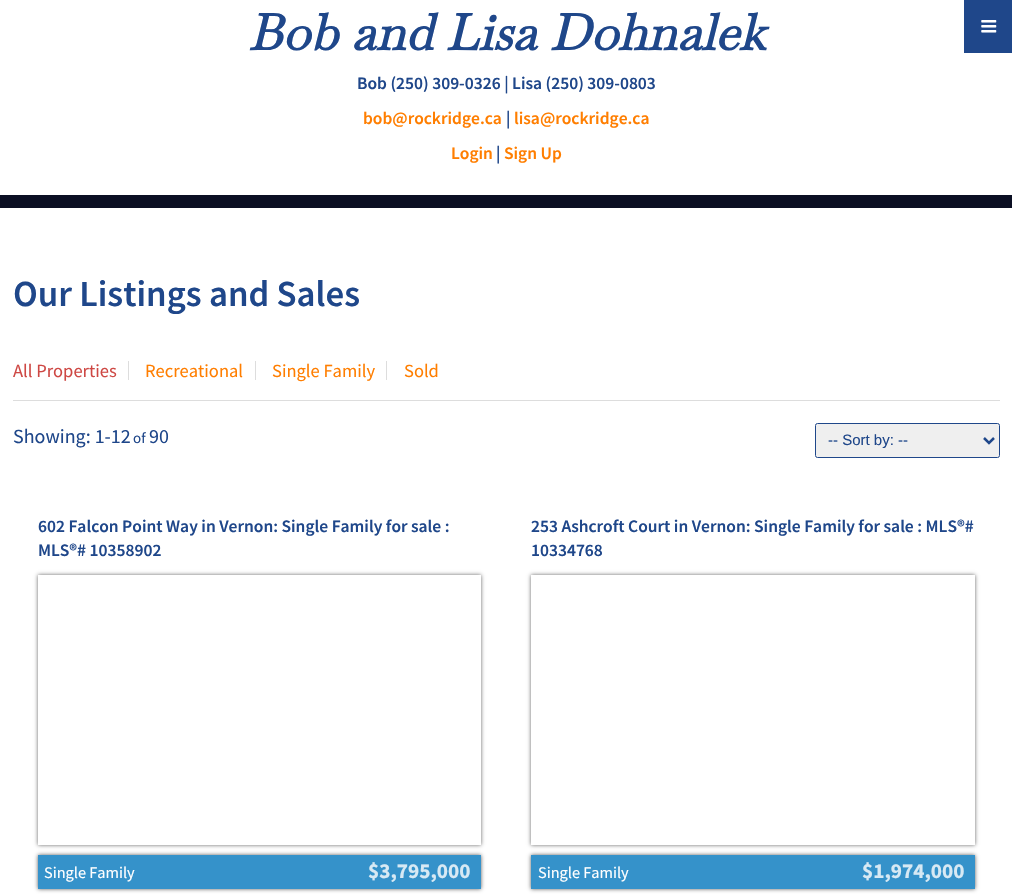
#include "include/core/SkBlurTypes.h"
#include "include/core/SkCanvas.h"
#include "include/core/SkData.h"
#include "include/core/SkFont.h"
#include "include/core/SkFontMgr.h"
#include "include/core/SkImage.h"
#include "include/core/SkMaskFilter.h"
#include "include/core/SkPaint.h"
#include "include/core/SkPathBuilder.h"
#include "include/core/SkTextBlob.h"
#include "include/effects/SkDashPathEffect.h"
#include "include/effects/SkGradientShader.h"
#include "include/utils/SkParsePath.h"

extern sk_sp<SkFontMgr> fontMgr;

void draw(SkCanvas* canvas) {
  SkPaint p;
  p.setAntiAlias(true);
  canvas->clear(SK_ColorWHITE);
  p.setColor(SkColorSetRGB(11, 15, 35));
  canvas->drawRect(SkRect::MakeLTRB(0, 195, 1012, 208), p);
  p.setColor(SkColorSetRGB(31, 71, 138));
  canvas->drawRect(SkRect::MakeLTRB(964, 0, 1012, 53), p);
  canvas->drawImageRect(SkImages::DeferredFromEncodedData(SkData::MakeFromFileName("images/1.png")), SkRect::MakeLTRB(981, 20, 997, 33), SkSamplingOptions());
  p.setColor(SkColorSetRGB(221, 221, 221));
  canvas->drawRect(SkRect::MakeLTRB(128, 361, 129, 380), p);
  canvas->drawRect(SkRect::MakeLTRB(255, 361, 256, 380), p);
  canvas->drawRect(SkRect::MakeLTRB(386, 361, 387, 380), p);
  canvas->drawRect(SkRect::MakeLTRB(13, 400, 1000, 401), p);
  p.setColor(SkColorSetRGB(239, 239, 239));
  canvas->drawRoundRect(SkRect::MakeLTRB(815.5f, 423.5f, 999.5f, 457.5f), 2, 2, p);
  p.setStyle(SkPaint::kStroke_Style);
  p.setStrokeWidth(1);
  p.setColor(SkColorSetRGB(31, 71, 138));
  canvas->drawRoundRect(SkRect::MakeLTRB(815.5f, 423.5f, 999.5f, 457.5f), 2, 2, p);
  p.setStrokeWidth(2.5f);
  canvas->drawPath(SkPathBuilder().moveTo(984, 438).lineTo(989, 443).lineTo(994, 438).detach(), p);
  canvas->save();
  canvas->clipPath(SkPathBuilder(SkPathFillType::kEvenOdd).moveTo(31, 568).lineTo(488, 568).lineTo(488, 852).lineTo(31, 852).close().moveTo(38, 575).lineTo(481, 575).lineTo(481, 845).lineTo(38, 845).close().detach(), true);
  p.setStyle(SkPaint::kFill_Style);
  p.setColor(SkColorSetRGB(102, 102, 102));
  p.setMaskFilter(SkMaskFilter::MakeBlur(kNormal_SkBlurStyle, 2));
  canvas->drawRect(SkRect::MakeLTRB(38, 575, 481, 845), p);
  p.setMaskFilter(nullptr);
  canvas->restore();
  p.setColor(SkColorSetRGB(92, 92, 92));
  p.setMaskFilter(SkMaskFilter::MakeBlur(kNormal_SkBlurStyle, 2));
  canvas->drawRect(SkRect::MakeLTRB(38, 855, 481, 889), p);
  p.setMaskFilter(nullptr);
  p.setColor(SkColorSetRGB(53, 146, 202));
  canvas->drawRect(SkRect::MakeLTRB(38, 855, 481, 889), p);
  canvas->save();
  canvas->clipPath(SkPathBuilder(SkPathFillType::kEvenOdd).moveTo(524, 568).lineTo(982, 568).lineTo(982, 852).lineTo(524, 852).close().moveTo(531, 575).lineTo(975, 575).lineTo(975, 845).lineTo(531, 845).close().detach(), true);
  p.setColor(SkColorSetRGB(102, 102, 102));
  p.setMaskFilter(SkMaskFilter::MakeBlur(kNormal_SkBlurStyle, 2));
  canvas->drawRect(SkRect::MakeLTRB(531, 575, 975, 845), p);
  p.setMaskFilter(nullptr);
  canvas->restore();
  p.setColor(SK_ColorWHITE);
  canvas->drawRect(SkRect::MakeLTRB(531, 839, 532, 845), p);
  p.setColor(SkColorSetRGB(92, 92, 92));
  p.setMaskFilter(SkMaskFilter::MakeBlur(kNormal_SkBlurStyle, 2));
  canvas->drawRect(SkRect::MakeLTRB(531, 855, 975, 889), p);
  p.setMaskFilter(nullptr);
  p.setColor(SkColorSetRGB(53, 146, 202));
  canvas->drawRect(SkRect::MakeLTRB(531, 855, 975, 889), p);
  SkFont font1(fontMgr->matchFamilyStyle("Baskervville", SkFontStyle::BoldItalic()), 50);
  font1.setSubpixel(true);
  p.setColor(SkColorSetRGB(31, 71, 138));
  canvas->drawString("Bob and Lisa Dohnalek", 248, 50, font1, p);
  SkFont font2(fontMgr->matchFamilyStyle("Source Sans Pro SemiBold", SkFontStyle(600, SkFontStyle::kNormal_Width, SkFontStyle::kUpright_Slant)), 17.5f);
  font2.setSubpixel(true);
  canvas->drawString("Bob (250) 309-0326 | Lisa (250) 309-0803", 357, 89, font2, p);
  p.setColor(SkColorSetRGB(255, 126, 0));
  canvas->drawString("bob@rockridge.ca", 363, 124, font2, p);
  p.setColor(SkColorSetRGB(31, 71, 138));
  canvas->drawString("|", 506, 124, font2, p);
  p.setColor(SkColorSetRGB(255, 126, 0));
  canvas->drawString("lisa@rockridge.ca", 514, 124, font2, p);
  canvas->drawString("Login", 451, 159, font2, p);
  p.setColor(SkColorSetRGB(31, 71, 138));
  canvas->drawString("|", 496, 159, font2, p);
  p.setColor(SkColorSetRGB(255, 126, 0));
  canvas->drawString("Sign Up", 504, 159, font2, p);
  SkFont font3(fontMgr->matchFamilyStyle("Source Sans Pro SemiBold", SkFontStyle(600, SkFontStyle::kNormal_Width, SkFontStyle::kUpright_Slant)), 36.75f);
  font3.setSubpixel(true);
  p.setColor(SkColorSetRGB(31, 71, 138));
  canvas->drawString("Our Listings and Sales", 13, 306, font3, p);
  SkFont font4(fontMgr->matchFamilyStyle("Source Sans Pro", SkFontStyle::Normal()), 18.5f);
  font4.setSubpixel(true);
  p.setColor(SkColorSetRGB(206, 72, 68));
  canvas->drawString("All Properties", 13, 377, font4, p);
  p.setColor(SkColorSetRGB(255, 126, 0));
  canvas->drawString("Recreational", 145, 377, font4, p);
  canvas->drawString("Single Family", 272, 377, font4, p);
  canvas->drawString("Sold", 404, 377, font4, p);
  SkFont font5(fontMgr->matchFamilyStyle("Source Sans Pro", SkFontStyle::Normal()), 20);
  font5.setSubpixel(true);
  p.setColor(SkColorSetRGB(31, 71, 138));
  canvas->drawString("Showing: 1-12", 13, 443, font5, p);
  SkFont font6(fontMgr->matchFamilyStyle("Source Sans Pro", SkFontStyle::Normal()), 15);
  font6.setSubpixel(true);
  canvas->drawString("of", 133, 443, font6, p);
  canvas->drawString("90", 149, 443, font5, p);
  SkFont font7(fontMgr->matchFamilyStyle("Liberation Sans", SkFontStyle::Normal()), 15);
  font7.setSubpixel(true);
  canvas->drawString("-- Sort by: --", 828, 445, font7, p);
  canvas->drawString("602 Falcon Point Way in Vernon: Single Family for sale :", 38, 532, font2, p);
  canvas->drawString("MLS®# 10358902", 38, 556, font2, p);
  SkFont font8(fontMgr->matchFamilyStyle("Source Sans Pro", SkFontStyle::Normal()), 16.25f);
  font8.setSubpixel(true);
  p.setColor(SK_ColorWHITE);
  canvas->drawString("Single Family", 44, 878, font8, p);
  SkFont font9(fontMgr->matchFamilyStyle("Source Sans Pro", SkFontStyle::Bold()), 21.25f);
  font9.setSubpixel(true);
  p.setColor(SkColorSetRGB(215, 233, 244));
  canvas->drawString("$3,795,000", 368, 878, font9, p);
  p.setColor(SkColorSetRGB(31, 71, 138));
  canvas->drawString("253 Ashcroft Court in Vernon: Single Family for sale : MLS®#", 531, 532, font2, p);
  canvas->drawString("10334768", 531, 556, font2, p);
  p.setColor(SK_ColorWHITE);
  canvas->drawString("Single Family", 538, 878, font8, p);
  p.setColor(SkColorSetRGB(215, 233, 244));
  canvas->drawString("$1,974,000", 862, 878, font9, p);
}
